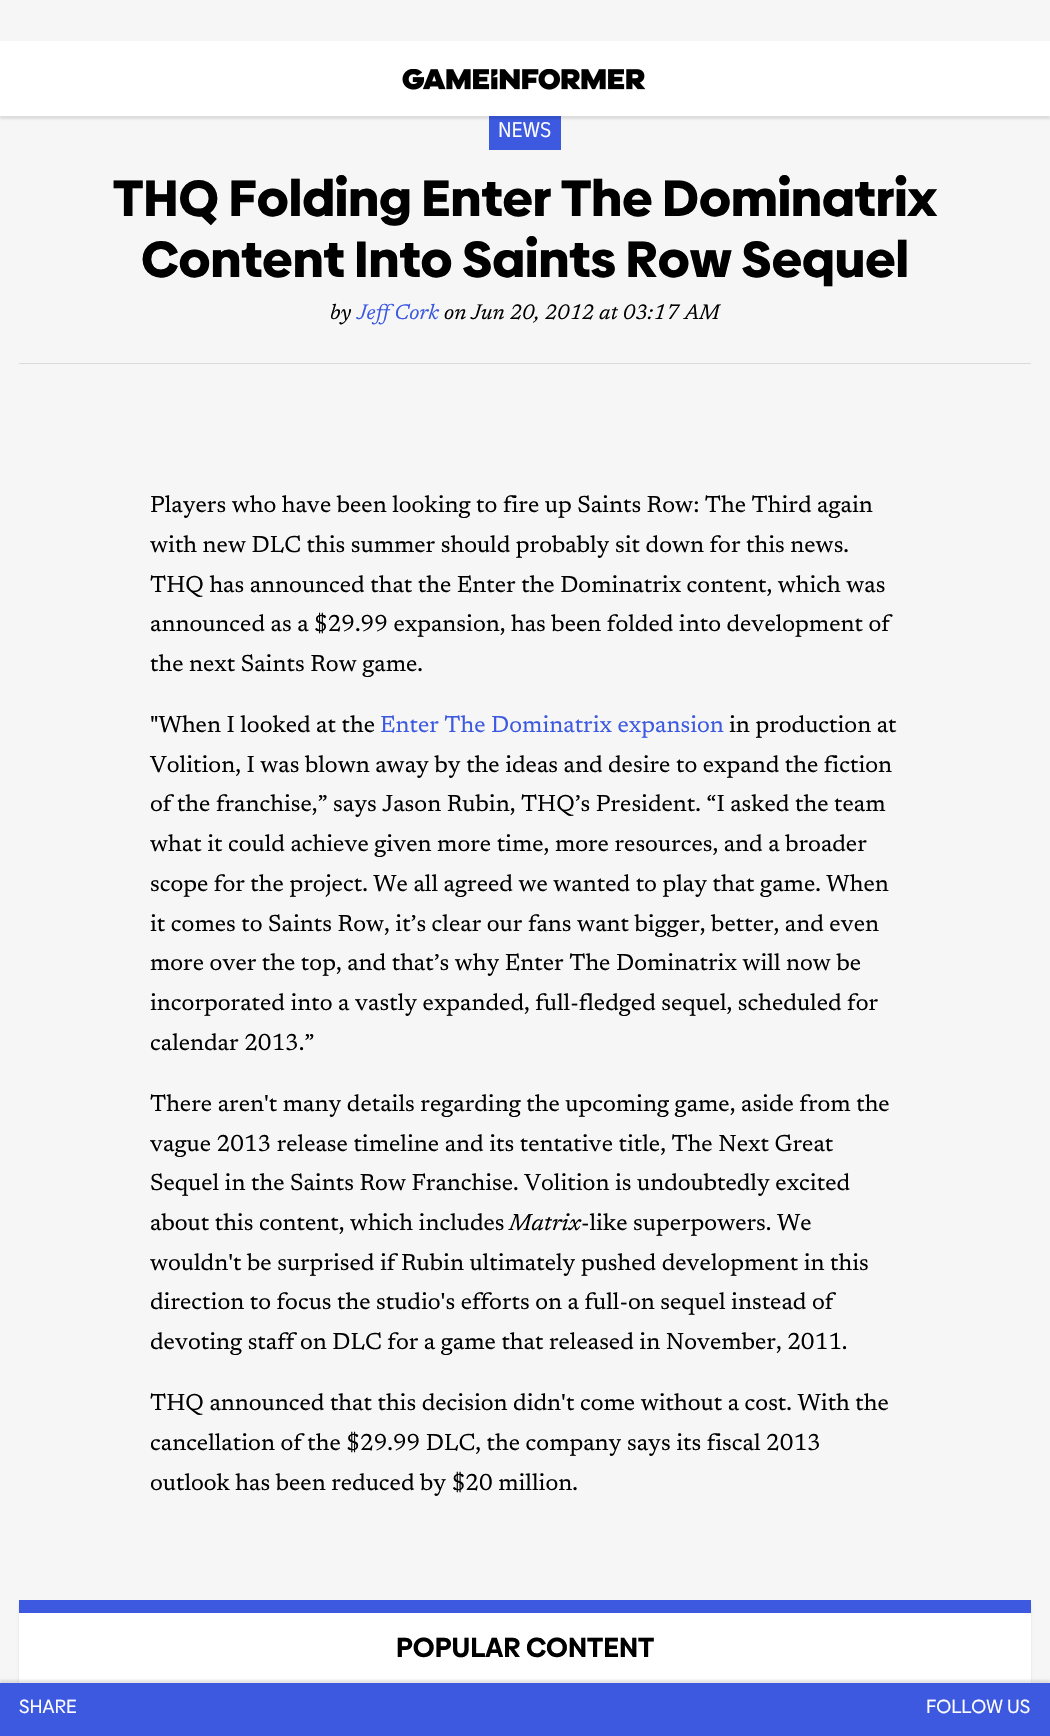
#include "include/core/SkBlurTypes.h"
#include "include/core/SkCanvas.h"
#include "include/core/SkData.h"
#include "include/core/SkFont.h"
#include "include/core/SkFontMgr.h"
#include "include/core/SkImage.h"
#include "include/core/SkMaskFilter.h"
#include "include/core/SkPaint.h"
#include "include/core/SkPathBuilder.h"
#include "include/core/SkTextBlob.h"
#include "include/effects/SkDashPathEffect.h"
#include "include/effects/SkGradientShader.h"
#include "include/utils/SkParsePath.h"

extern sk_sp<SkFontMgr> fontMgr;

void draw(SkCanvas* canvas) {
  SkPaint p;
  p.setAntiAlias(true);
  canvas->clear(SkColorSetRGB(246, 246, 246));
  p.setColor(SkColorSetRGB(60, 89, 224));
  canvas->drawRect(SkRect::MakeLTRB(489, 116, 561, 150), p);
  p.setColor(SkColorSetARGB(26, 0, 0, 0));
  p.setMaskFilter(SkMaskFilter::MakeBlur(kNormal_SkBlurStyle, 1));
  canvas->drawRect(SkRect::MakeLTRB(0, 44, 1050, 119), p);
  p.setMaskFilter(nullptr);
  p.setColor(SK_ColorWHITE);
  canvas->drawRect(SkRect::MakeLTRB(0, 41, 1050, 116), p);
  canvas->drawImageRect(SkImages::DeferredFromEncodedData(SkData::MakeFromFileName("images/1.png")), SkRect::MakeLTRB(402, 69, 646, 90), SkSamplingOptions());
  p.setColor(SkColorSetRGB(219, 219, 219));
  canvas->drawRect(SkRect::MakeLTRB(19, 363, 1031, 364), p);
  p.setColor(SkColorSetARGB(26, 0, 0, 0));
  p.setMaskFilter(SkMaskFilter::MakeBlur(kNormal_SkBlurStyle, 1));
  canvas->drawRect(SkRect::MakeLTRB(19, 1603, 1031, 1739), p);
  p.setMaskFilter(nullptr);
  p.setColor(SK_ColorWHITE);
  canvas->drawRect(SkRect::MakeLTRB(19, 1613, 1031, 1683), p);
  p.setColor(SkColorSetRGB(60, 89, 224));
  canvas->drawRect(SkRect::MakeLTRB(19, 1600, 1031, 1613), p);
  p.setColor(SkColorSetARGB(26, 0, 0, 0));
  p.setMaskFilter(SkMaskFilter::MakeBlur(kNormal_SkBlurStyle, 1));
  canvas->drawRect(SkRect::MakeLTRB(0, 1680, 1050, 1734), p);
  p.setMaskFilter(nullptr);
  p.setColor(SkColorSetRGB(60, 89, 224));
  canvas->drawRect(SkRect::MakeLTRB(0, 1683, 1050, 1736), p);
  SkFont font1(fontMgr->matchFamilyStyle("IBM Plex Sans Condensed", SkFontStyle::Normal()), 21.25f);
  font1.setSubpixel(true);
  p.setColor(SK_ColorWHITE);
  canvas->drawString("NEWS", 498, 137, font1, p);
  SkFont font2(fontMgr->matchFamilyStyle("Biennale", SkFontStyle(900, SkFontStyle::kNormal_Width, SkFontStyle::kUpright_Slant)), 51);
  font2.setSubpixel(true);
  p.setColor(SK_ColorBLACK);
  canvas->drawString("THQ Folding Enter The Dominatrix", 113, 216, font2, p);
  canvas->drawString("Content Into Saints Row Sequel", 141, 277, font2, p);
  SkFont font3(fontMgr->matchFamilyStyle("Newsreader", SkFontStyle::Italic()), 21.25f);
  font3.setSubpixel(true);
  canvas->drawString("by", 330, 319, font3, p);
  p.setColor(SkColorSetRGB(60, 89, 224));
  canvas->drawString("Jeff Cork", 357, 319, font3, p);
  p.setColor(SK_ColorBLACK);
  canvas->drawString("on Jun 20, 2012 at 03:17 AM", 444, 319, font3, p);
  SkFont font4(fontMgr->matchFamilyStyle("Newsreader", SkFontStyle::Normal()), 23.4f);
  font4.setSubpixel(true);
  canvas->drawString("Players who have been looking to fire up Saints Row: The Third again", 150, 512, font4, p);
  canvas->drawString("with new DLC this summer should probably sit down for this news.", 150, 552, font4, p);
  canvas->drawString("THQ has announced that the Enter the Dominatrix content, which was", 150, 592, font4, p);
  canvas->drawString("announced as a $29.99 expansion, has been folded into development of", 150, 631, font4, p);
  canvas->drawString("the next Saints Row game.", 150, 671, font4, p);
  canvas->drawString("\"When I looked at the", 150, 732, font4, p);
  p.setColor(SkColorSetRGB(60, 89, 224));
  canvas->drawString("Enter The Dominatrix expansion", 380, 732, font4, p);
  p.setColor(SK_ColorBLACK);
  canvas->drawString("in production at", 729, 732, font4, p);
  canvas->drawString("Volition, I was blown away by the ideas and desire to expand the fiction", 150, 772, font4, p);
  canvas->drawString("of the franchise,” says Jason Rubin, THQ’s President. “I asked the team", 150, 811, font4, p);
  canvas->drawString("what it could achieve given more time, more resources, and a broader", 150, 851, font4, p);
  canvas->drawString("scope for the project. We all agreed we wanted to play that game. When", 150, 891, font4, p);
  canvas->drawString("it comes to Saints Row, it’s clear our fans want bigger, better, and even", 150, 931, font4, p);
  canvas->drawString("more over the top, and that’s why Enter The Dominatrix will now be", 150, 970, font4, p);
  canvas->drawString("incorporated into a vastly expanded, full-fledged sequel, scheduled for", 150, 1010, font4, p);
  canvas->drawString("calendar 2013.”", 150, 1050, font4, p);
  canvas->drawString("There aren't many details regarding the upcoming game, aside from the", 150, 1111, font4, p);
  canvas->drawString("vague 2013 release timeline and its tentative title, The Next Great", 150, 1151, font4, p);
  canvas->drawString("Sequel in the Saints Row Franchise. Volition is undoubtedly excited", 150, 1190, font4, p);
  canvas->drawString("about this content, which includes", 150, 1230, font4, p);
  SkFont font5(fontMgr->matchFamilyStyle("Newsreader", SkFontStyle::Italic()), 23.4f);
  font5.setSubpixel(true);
  canvas->drawString("Matrix", 509, 1230, font5, p);
  canvas->drawString("-like superpowers. We", 581, 1230, font4, p);
  canvas->drawString("wouldn't be surprised if Rubin ultimately pushed development in this", 150, 1270, font4, p);
  canvas->drawString("direction to focus the studio's efforts on a full-on sequel instead of", 150, 1309, font4, p);
  canvas->drawString("devoting staff on DLC for a game that released in November, 2011.", 150, 1349, font4, p);
  canvas->drawString("THQ announced that this decision didn't come without a cost. With the", 150, 1410, font4, p);
  canvas->drawString("cancellation of the $29.99 DLC, the company says its fiscal 2013", 150, 1450, font4, p);
  canvas->drawString("outlook has been reduced by $20 million.", 150, 1490, font4, p);
  SkFont font6(fontMgr->matchFamilyStyle("Biennale", SkFontStyle::Bold()), 27.6f);
  font6.setSubpixel(true);
  canvas->drawString("POPULAR CONTENT", 396, 1657, font6, p);
  SkFont font7(fontMgr->matchFamilyStyle("Biennale", SkFontStyle::Normal()), 19);
  font7.setSubpixel(true);
  p.setColor(SK_ColorWHITE);
  canvas->drawString("SHARE", 19, 1713, font7, p);
  canvas->drawString("FOLLOW US", 926, 1713, font7, p);
}
